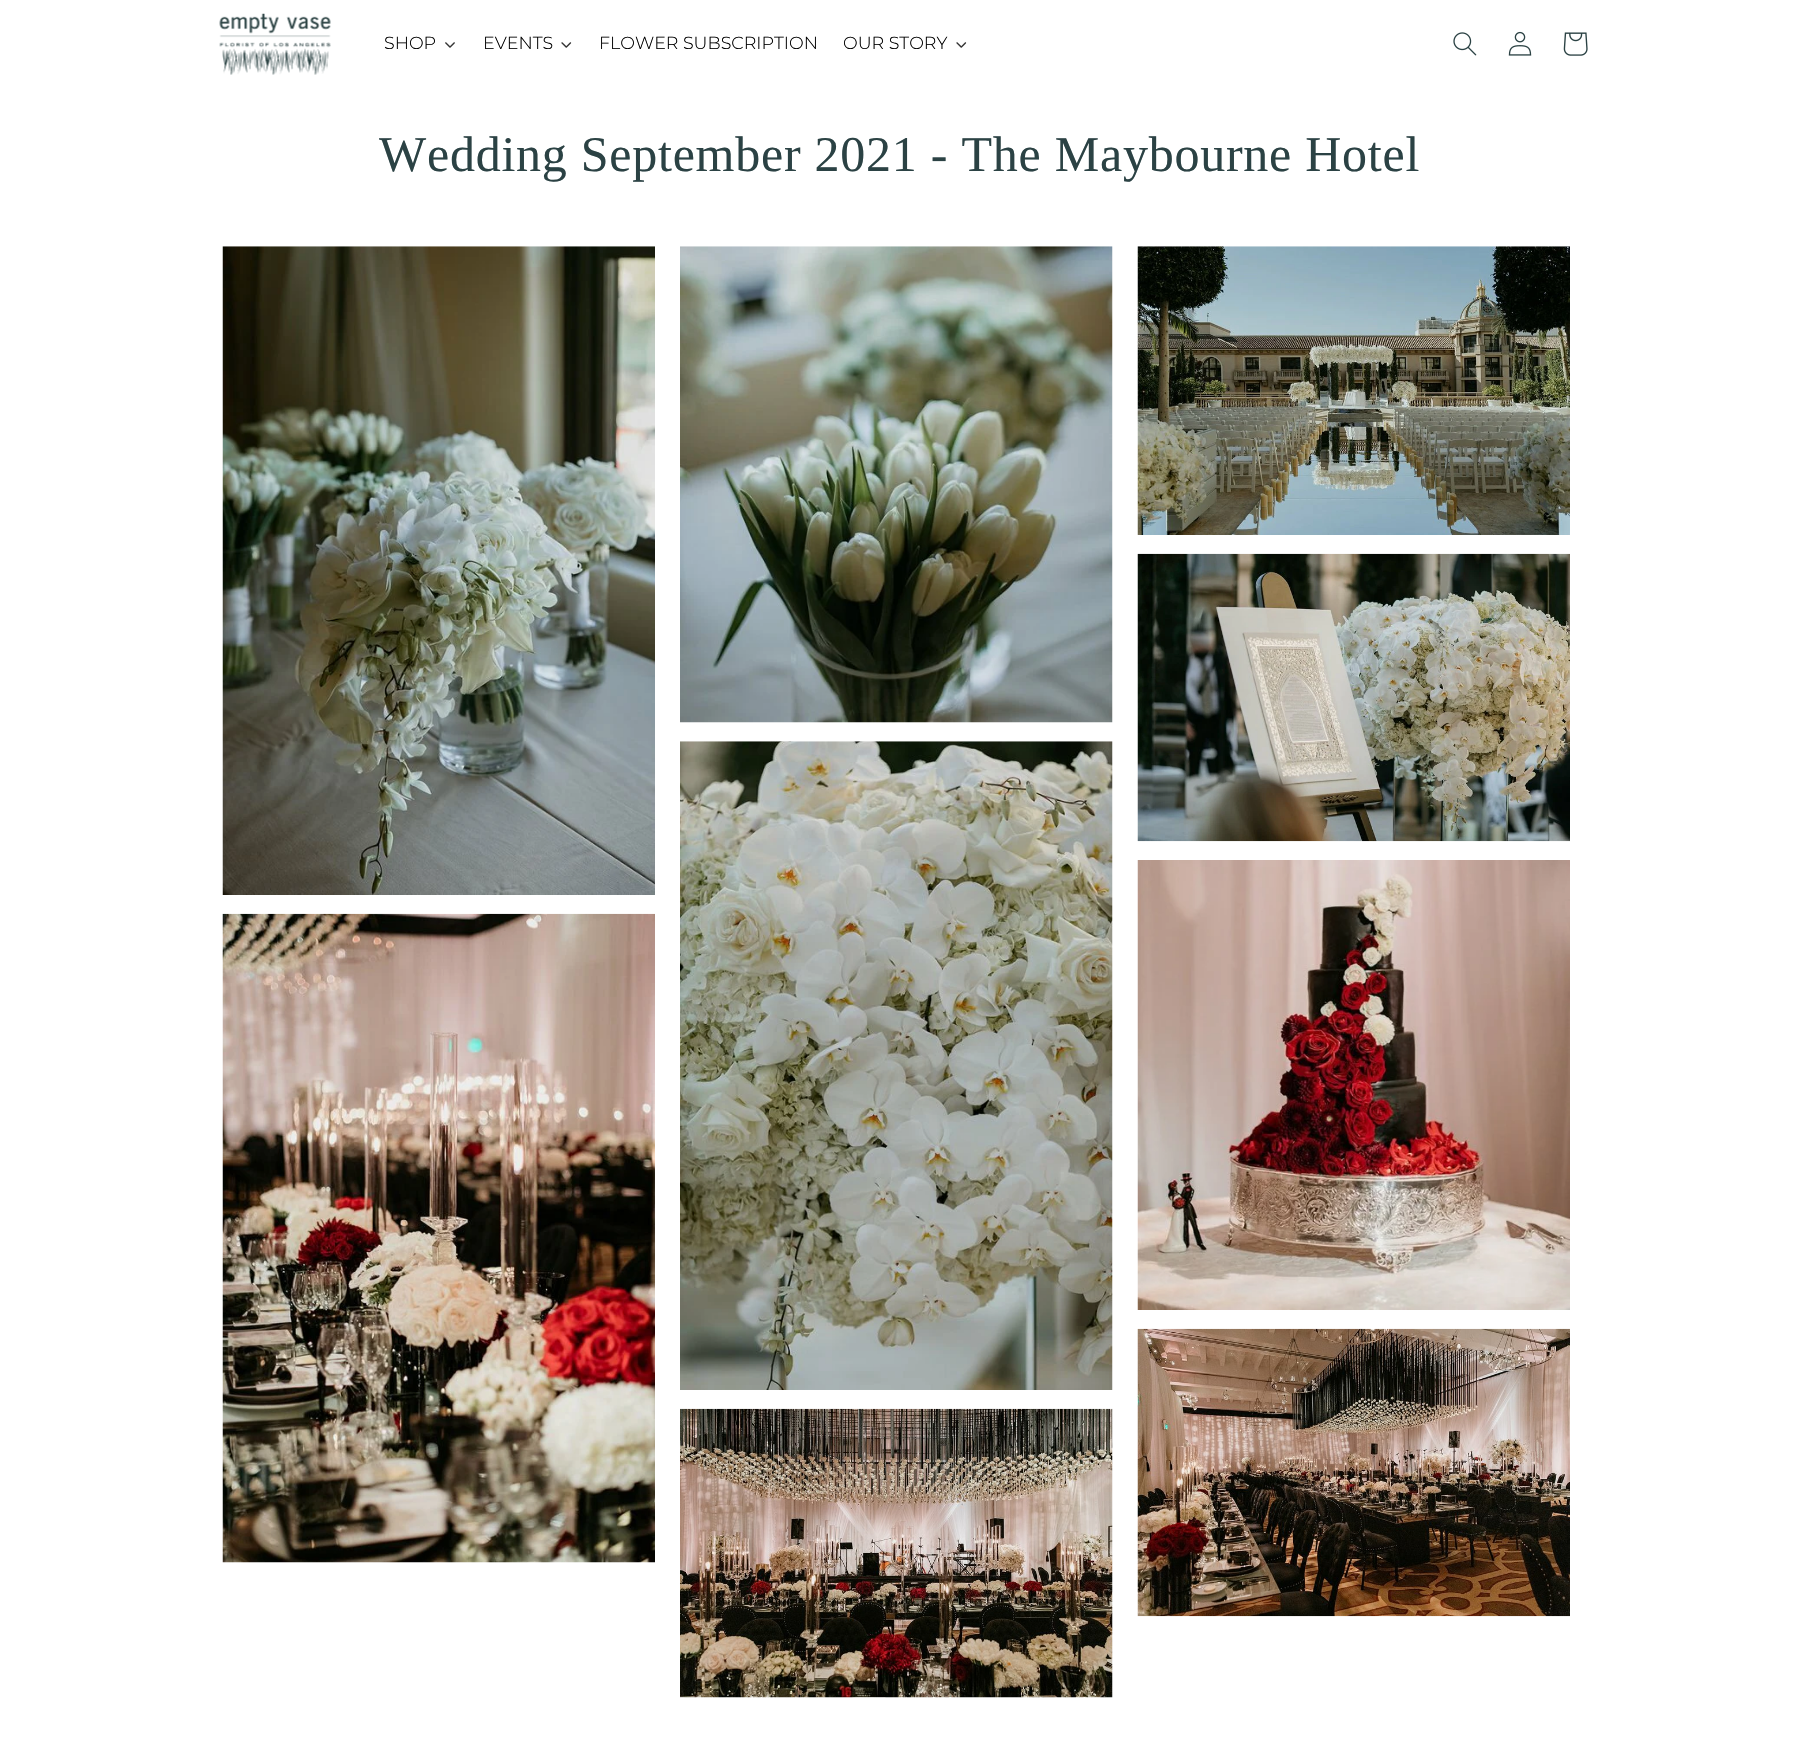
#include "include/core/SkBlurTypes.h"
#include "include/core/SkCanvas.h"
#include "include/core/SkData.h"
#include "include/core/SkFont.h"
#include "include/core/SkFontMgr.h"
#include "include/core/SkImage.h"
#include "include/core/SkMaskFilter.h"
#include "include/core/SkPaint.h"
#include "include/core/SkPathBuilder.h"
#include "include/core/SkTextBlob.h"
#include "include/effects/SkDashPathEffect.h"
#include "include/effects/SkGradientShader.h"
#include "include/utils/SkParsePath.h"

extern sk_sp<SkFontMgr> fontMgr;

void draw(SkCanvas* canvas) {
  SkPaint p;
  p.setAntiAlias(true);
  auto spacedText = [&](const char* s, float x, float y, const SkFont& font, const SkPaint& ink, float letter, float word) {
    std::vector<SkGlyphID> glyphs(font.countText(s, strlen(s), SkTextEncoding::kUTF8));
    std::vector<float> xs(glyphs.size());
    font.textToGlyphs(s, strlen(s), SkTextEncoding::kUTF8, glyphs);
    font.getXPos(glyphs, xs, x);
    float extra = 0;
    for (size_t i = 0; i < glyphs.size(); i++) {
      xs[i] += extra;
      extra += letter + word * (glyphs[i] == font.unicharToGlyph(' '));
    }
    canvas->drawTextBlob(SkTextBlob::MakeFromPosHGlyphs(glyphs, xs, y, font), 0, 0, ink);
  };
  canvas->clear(SK_ColorWHITE);
  canvas->drawImageRect(SkImages::DeferredFromEncodedData(SkData::MakeFromFileName("images/1.png")), SkRect::MakeLTRB(219, 13, 331, 75), SkSamplingOptions());
  canvas->drawImageRect(SkImages::DeferredFromEncodedData(SkData::MakeFromFileName("images/2.png")), SkRect::MakeLTRB(445, 42, 455, 48), SkSamplingOptions());
  canvas->drawImageRect(SkImages::DeferredFromEncodedData(SkData::MakeFromFileName("images/3.png")), SkRect::MakeLTRB(561, 42, 572, 48), SkSamplingOptions());
  canvas->drawImageRect(SkImages::DeferredFromEncodedData(SkData::MakeFromFileName("images/3.png")), SkRect::MakeLTRB(956, 42, 967, 48), SkSamplingOptions());
  canvas->drawImageRect(SkImages::DeferredFromEncodedData(SkData::MakeFromFileName("images/4.png")), SkRect::MakeLTRB(1453, 32, 1477, 56), SkSamplingOptions());
  canvas->drawImageRect(SkImages::DeferredFromEncodedData(SkData::MakeFromFileName("images/5.png")), SkRect::MakeLTRB(1508, 31, 1532, 56), SkSamplingOptions());
  canvas->drawImageRect(SkImages::DeferredFromEncodedData(SkData::MakeFromFileName("images/6.png")), SkRect::MakeLTRB(1563, 32, 1588, 56), SkSamplingOptions());
  canvas->drawImageRect(SkImages::DeferredFromEncodedData(SkData::MakeFromFileName("images/7.png")), SkRect::MakeLTRB(222, 246, 655, 895), SkSamplingOptions());
  canvas->drawImageRect(SkImages::DeferredFromEncodedData(SkData::MakeFromFileName("images/8.png")), SkRect::MakeLTRB(680, 246, 1113, 723), SkSamplingOptions());
  canvas->drawImageRect(SkImages::DeferredFromEncodedData(SkData::MakeFromFileName("images/9.png")), SkRect::MakeLTRB(1137, 246, 1570, 535), SkSamplingOptions());
  canvas->drawImageRect(SkImages::DeferredFromEncodedData(SkData::MakeFromFileName("images/10.png")), SkRect::MakeLTRB(1137, 553, 1570, 842), SkSamplingOptions());
  canvas->drawImageRect(SkImages::DeferredFromEncodedData(SkData::MakeFromFileName("images/11.png")), SkRect::MakeLTRB(222, 913, 655, 1563), SkSamplingOptions());
  canvas->drawImageRect(SkImages::DeferredFromEncodedData(SkData::MakeFromFileName("images/12.png")), SkRect::MakeLTRB(680, 741, 1113, 1390), SkSamplingOptions());
  canvas->drawImageRect(SkImages::DeferredFromEncodedData(SkData::MakeFromFileName("images/13.png")), SkRect::MakeLTRB(1137, 860, 1570, 1310), SkSamplingOptions());
  canvas->drawImageRect(SkImages::DeferredFromEncodedData(SkData::MakeFromFileName("images/14.png")), SkRect::MakeLTRB(680, 1408, 1113, 1698), SkSamplingOptions());
  canvas->drawImageRect(SkImages::DeferredFromEncodedData(SkData::MakeFromFileName("images/15.png")), SkRect::MakeLTRB(1137, 1328, 1570, 1617), SkSamplingOptions());
  SkFont font1(fontMgr->matchFamilyStyle("Montserrat", SkFontStyle(300, SkFontStyle::kNormal_Width, SkFontStyle::kUpright_Slant)), 17.5f);
  font1.setSubpixel(true);
  p.setColor(SK_ColorBLACK);
  canvas->drawString("SHOP", 384, 49, font1, p);
  canvas->drawString("EVENTS", 483, 49, font1, p);
  canvas->drawString("FLOWER SUBSCRIPTION", 599, 49, font1, p);
  canvas->drawString("OUR STORY", 843, 49, font1, p);
  SkFont font2(fontMgr->matchFamilyStyle("Liberation Serif", SkFontStyle::Normal()), 50);
  font2.setSubpixel(true);
  p.setColor(SkColorSetRGB(43, 66, 68));
  spacedText("Wedding September 2021 - The Maybourne Hotel", 379, 171, font2, p, 0.75f, 0);
}
